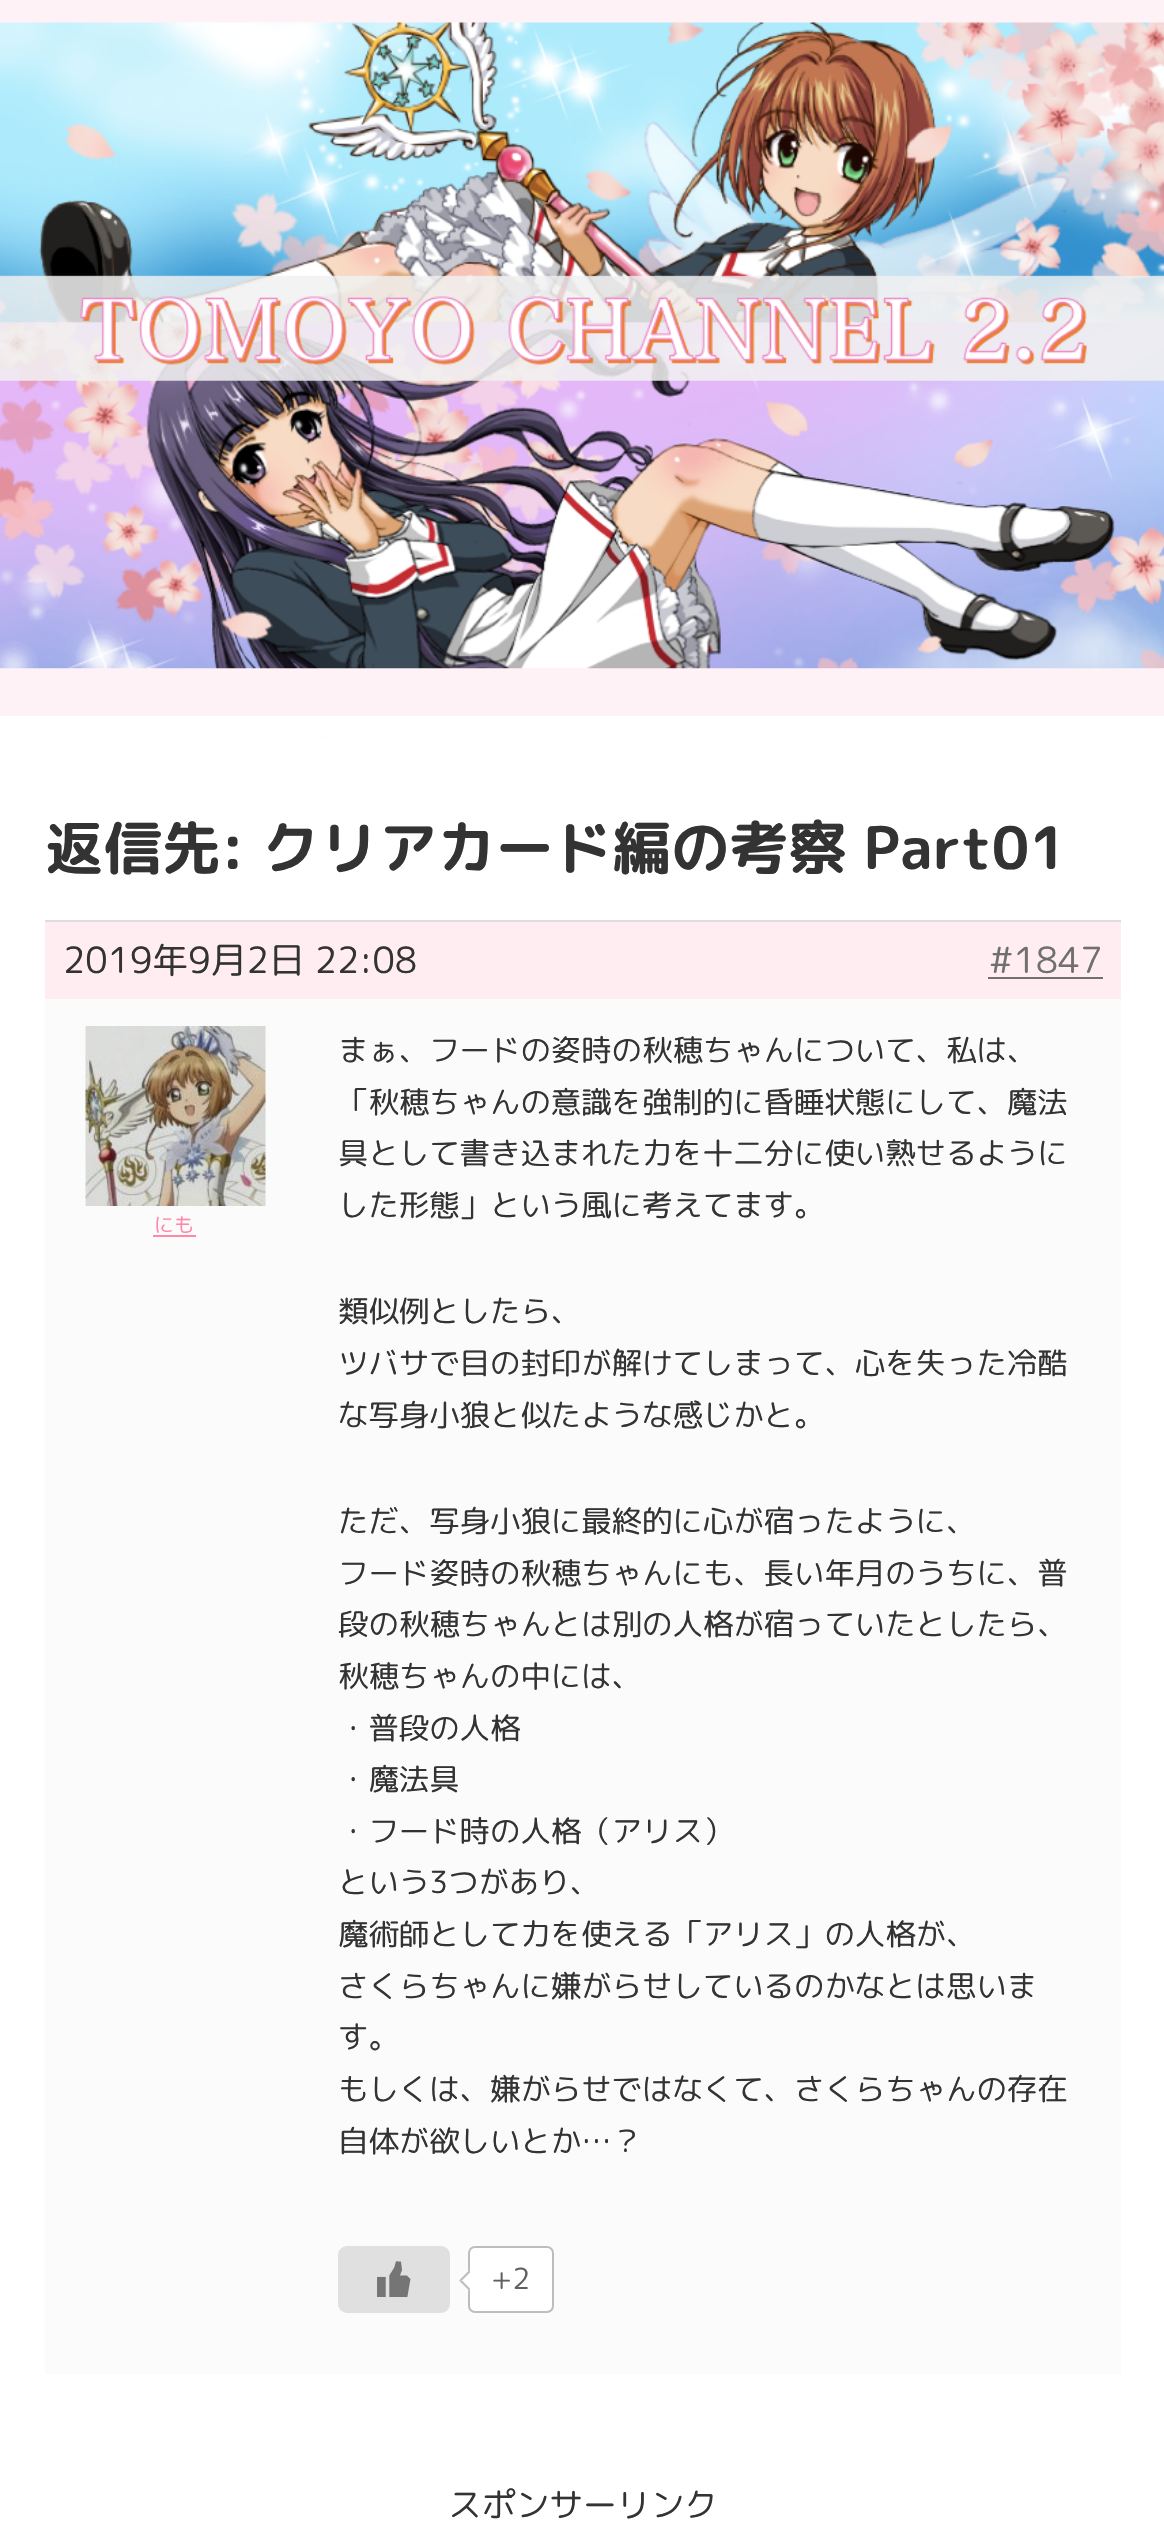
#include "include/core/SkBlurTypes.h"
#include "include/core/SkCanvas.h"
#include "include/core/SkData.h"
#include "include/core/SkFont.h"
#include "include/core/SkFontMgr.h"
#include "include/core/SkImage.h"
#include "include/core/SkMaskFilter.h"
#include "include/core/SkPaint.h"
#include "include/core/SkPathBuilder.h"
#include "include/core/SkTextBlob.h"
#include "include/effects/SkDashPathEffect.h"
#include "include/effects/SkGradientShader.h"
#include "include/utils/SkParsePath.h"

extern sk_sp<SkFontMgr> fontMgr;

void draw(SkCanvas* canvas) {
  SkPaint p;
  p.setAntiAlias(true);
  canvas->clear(SK_ColorWHITE);
  canvas->drawImageRect(SkImages::DeferredFromEncodedData(SkData::MakeFromFileName("images/1.png")), SkRect::MakeLTRB(0, 716, 1164, 747), SkSamplingOptions());
  p.setColor(SkColorSetRGB(255, 242, 246));
  canvas->drawRect(SkRect::MakeLTRB(0, 0, 1164, 716), p);
  canvas->drawImageRect(SkImages::DeferredFromEncodedData(SkData::MakeFromFileName("images/2.png")), SkRect::MakeLTRB(0, 22, 1164, 669), SkSamplingOptions());
  p.setColor(SK_ColorWHITE);
  canvas->drawRoundRect(SkRect::MakeLTRB(0, 738, 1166, 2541), 9, 9, p);
  p.setColor(SkColorSetRGB(255, 237, 241));
  canvas->drawRect(SkRect::MakeLTRB(45, 922, 1121, 999), p);
  p.setColor(SkColorSetRGB(221, 221, 221));
  canvas->drawRect(SkRect::MakeLTRB(45, 920, 1121, 922), p);
  p.setColor(SkColorSetRGB(112, 112, 112));
  canvas->drawRect(SkRect::MakeLTRB(988, 977, 1103, 979), p);
  p.setColor(SkColorSetRGB(251, 251, 251));
  canvas->drawRect(SkRect::MakeLTRB(45, 999, 1121, 2374), p);
  canvas->drawImageRect(SkImages::DeferredFromEncodedData(SkData::MakeFromFileName("images/3.png")), SkRect::MakeLTRB(85, 1026, 266, 1206), SkSamplingOptions());
  p.setColor(SkColorSetRGB(255, 135, 167));
  canvas->drawRect(SkRect::MakeLTRB(153, 1235, 196, 1237), p);
  p.setColor(SkColorSetRGB(224, 224, 224));
  canvas->drawRoundRect(SkRect::MakeLTRB(338, 2246, 450, 2313), 9, 9, p);
  canvas->drawImageRect(SkImages::DeferredFromEncodedData(SkData::MakeFromFileName("images/4.png")), SkRect::MakeLTRB(377, 2261, 411, 2297), SkSamplingOptions());
  p.setColor(SK_ColorWHITE);
  canvas->drawRoundRect(SkRect::MakeLTRB(469, 2247, 553, 2312), 6, 6, p);
  p.setStyle(SkPaint::kStroke_Style);
  p.setStrokeWidth(2);
  p.setColor(SkColorSetRGB(189, 189, 189));
  canvas->drawRoundRect(SkRect::MakeLTRB(469, 2247, 553, 2312), 6, 6, p);
  p.setStyle(SkPaint::kFill_Style);
  p.setColor(SK_ColorWHITE);
  canvas->drawPath(SkPathBuilder().moveTo(470, 2269.5f).lineTo(481.5f, 2280.5f).lineTo(470, 2291.5f).lineTo(459, 2280.5f).close().detach(), p);
  p.setColor(SkColorSetRGB(189, 189, 189));
  canvas->drawPath(SkPathBuilder().moveTo(470, 2291.5f).lineTo(459, 2280.5f).lineTo(462, 2280.5f).lineTo(470, 2288.5f).close().detach(), p);
  canvas->drawPath(SkPathBuilder().moveTo(459, 2280.5f).lineTo(470, 2269.5f).lineTo(470, 2272.5f).lineTo(462, 2280.5f).close().detach(), p);
  SkFont font1(fontMgr->matchFamilyStyle("Rounded Mplus 1c Bold", SkFontStyle::Bold()), 58.5f);
  font1.setSubpixel(true);
  p.setColor(SkColorSetRGB(51, 51, 51));
  canvas->drawString("返信先: クリアカード編の考察 Part01", 45, 869, font1, p);
  SkFont font2(fontMgr->matchFamilyStyle("Rounded Mplus 1c", SkFontStyle::Normal()), 36);
  font2.setSubpixel(true);
  canvas->drawString("2019年9月2日 22:08", 63, 973, font2, p);
  p.setColor(SkColorSetRGB(112, 112, 112));
  canvas->drawString("#1847", 989, 973, font2, p);
  SkFont font3(fontMgr->matchFamilyStyle("Rounded Mplus 1c", SkFontStyle::Normal()), 20);
  font3.setSubpixel(true);
  p.setColor(SkColorSetRGB(255, 135, 167));
  canvas->drawString("にも", 154, 1232, font3, p);
  SkFont font4(fontMgr->matchFamilyStyle("Rounded Mplus 1c", SkFontStyle::Normal()), 30.4f);
  font4.setSubpixel(true);
  p.setColor(SkColorSetRGB(51, 51, 51));
  canvas->drawString("まぁ、フードの姿時の秋穂ちゃんについて、私は、", 338, 1061, font4, p);
  canvas->drawString("「秋穂ちゃんの意識を強制的に昏睡状態にして、魔法", 338, 1113, font4, p);
  canvas->drawString("具として書き込まれた力を十二分に使い熟せるように", 338, 1164, font4, p);
  canvas->drawString("した形態」という風に考えてます。", 338, 1216, font4, p);
  canvas->drawString("類似例としたら、", 338, 1322, font4, p);
  canvas->drawString("ツバサで目の封印が解けてしまって、心を失った冷酷", 338, 1374, font4, p);
  canvas->drawString("な写身小狼と似たような感じかと。", 338, 1426, font4, p);
  canvas->drawString("ただ、写身小狼に最終的に心が宿ったように、", 338, 1532, font4, p);
  canvas->drawString("フード姿時の秋穂ちゃんにも、長い年月のうちに、普", 338, 1584, font4, p);
  canvas->drawString("段の秋穂ちゃんとは別の人格が宿っていたとしたら、", 338, 1635, font4, p);
  canvas->drawString("秋穂ちゃんの中には、", 338, 1687, font4, p);
  canvas->drawString("・普段の人格", 338, 1739, font4, p);
  canvas->drawString("・魔法具", 338, 1790, font4, p);
  canvas->drawString("・フード時の人格（アリス）", 338, 1842, font4, p);
  canvas->drawString("という3つがあり、", 338, 1893, font4, p);
  canvas->drawString("魔術師として力を使える「アリス」の人格が、", 338, 1945, font4, p);
  canvas->drawString("さくらちゃんに嫌がらせしているのかなとは思いま", 338, 1997, font4, p);
  canvas->drawString("す。", 338, 2048, font4, p);
  canvas->drawString("もしくは、嫌がらせではなくて、さくらちゃんの存在", 338, 2100, font4, p);
  canvas->drawString("自体が欲しいとか…？", 338, 2152, font4, p);
  SkFont font5(fontMgr->matchFamilyStyle("Rounded Mplus 1c", SkFontStyle::Normal()), 29);
  font5.setSubpixel(true);
  p.setColor(SkColorSetRGB(97, 97, 97));
  canvas->drawString("+2", 491, 2289, font5, p);
  SkFont font6(fontMgr->matchFamilyStyle("Rounded Mplus 1c", SkFontStyle::Normal()), 33.75f);
  font6.setSubpixel(true);
  p.setColor(SkColorSetRGB(51, 51, 51));
  canvas->drawString("スポンサーリンク", 448, 2517, font6, p);
}
